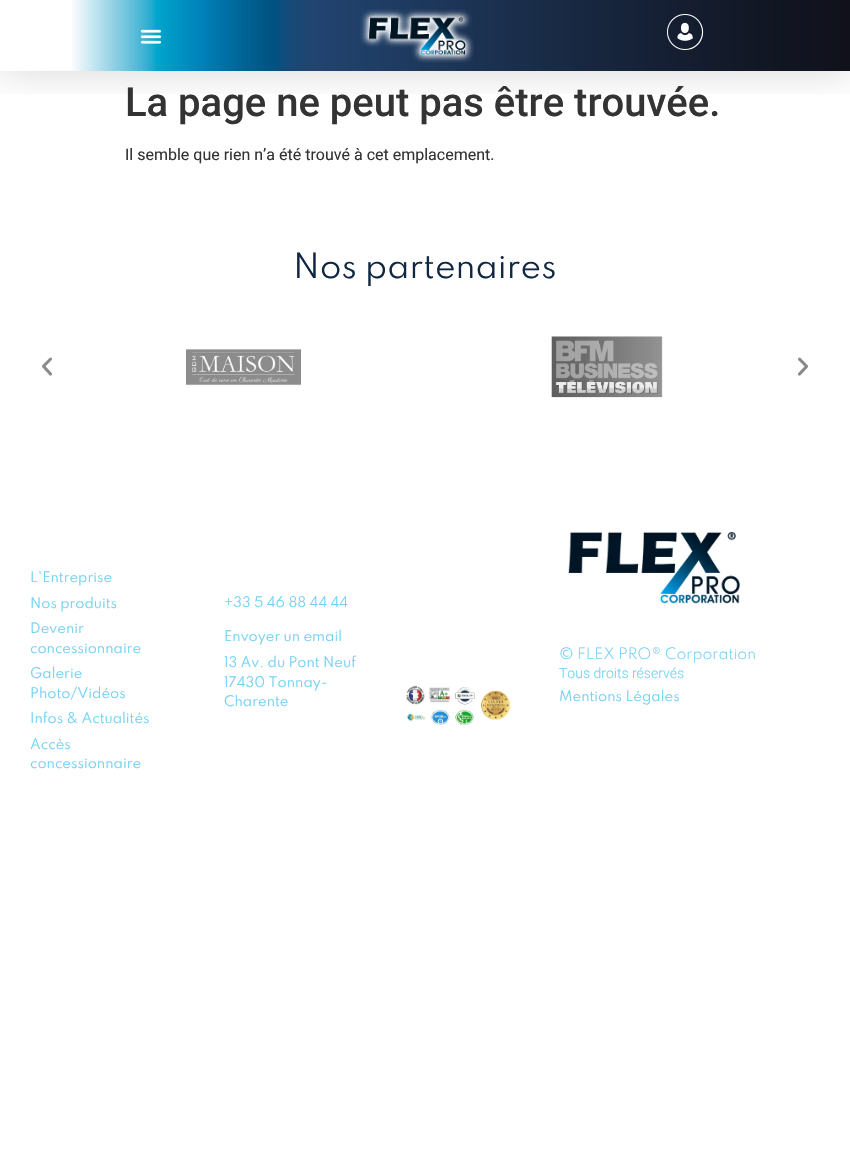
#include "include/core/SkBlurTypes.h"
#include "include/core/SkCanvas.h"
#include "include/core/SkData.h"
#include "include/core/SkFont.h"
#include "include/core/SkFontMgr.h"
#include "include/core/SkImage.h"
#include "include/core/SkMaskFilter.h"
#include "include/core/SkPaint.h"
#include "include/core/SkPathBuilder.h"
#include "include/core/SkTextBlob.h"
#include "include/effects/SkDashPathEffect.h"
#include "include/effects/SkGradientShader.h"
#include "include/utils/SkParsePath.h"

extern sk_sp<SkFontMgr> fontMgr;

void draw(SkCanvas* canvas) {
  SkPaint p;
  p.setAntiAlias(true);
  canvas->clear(SK_ColorWHITE);
  canvas->save();
  canvas->clipRect(SkRect::MakeLTRB(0, 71, 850, 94));
  p.setColor(SkColorSetARGB(41, 0, 0, 0));
  p.setMaskFilter(SkMaskFilter::MakeBlur(kNormal_SkBlurStyle, 20));
  canvas->drawRect(SkRect::MakeLTRB(0, 0, 850, 71), p);
  p.setMaskFilter(nullptr);
  canvas->restore();
  canvas->drawImageRect(SkImages::DeferredFromEncodedData(SkData::MakeFromFileName("images/1.png")), SkRect::MakeLTRB(72, 0, 850, 71), SkSamplingOptions());
  canvas->drawImageRect(SkImages::DeferredFromEncodedData(SkData::MakeFromFileName("images/2.png")), SkRect::MakeLTRB(140, 29, 162, 44), SkSamplingOptions());
  canvas->drawImageRect(SkImages::DeferredFromEncodedData(SkData::MakeFromFileName("images/3.png")), SkRect::MakeLTRB(360, 9, 474, 63), SkSamplingOptions());
  canvas->drawImageRect(SkImages::DeferredFromEncodedData(SkData::MakeFromFileName("images/4.png")), SkRect::MakeLTRB(667, 14, 704, 50), SkSamplingOptions());
  canvas->drawImageRect(SkImages::DeferredFromEncodedData(SkData::MakeFromFileName("images/5.png")), SkRect::MakeLTRB(42, 357, 53, 376), SkSamplingOptions());
  canvas->drawImageRect(SkImages::DeferredFromEncodedData(SkData::MakeFromFileName("images/6.png")), SkRect::MakeLTRB(186, 349, 301, 386), SkSamplingOptions());
  canvas->drawImageRect(SkImages::DeferredFromEncodedData(SkData::MakeFromFileName("images/7.png")), SkRect::MakeLTRB(551, 336, 663, 398), SkSamplingOptions());
  canvas->drawImageRect(SkImages::DeferredFromEncodedData(SkData::MakeFromFileName("images/8.png")), SkRect::MakeLTRB(797, 357, 809, 376), SkSamplingOptions());
  canvas->drawImageRect(SkImages::DeferredFromEncodedData(SkData::MakeFromFileName("images/9.png")), SkRect::MakeLTRB(406, 685, 511, 726), SkSamplingOptions());
  canvas->drawImageRect(SkImages::DeferredFromEncodedData(SkData::MakeFromFileName("images/10.png")), SkRect::MakeLTRB(568, 531, 740, 604), SkSamplingOptions());
  SkFont font1(fontMgr->matchFamilyStyle("Roboto", SkFontStyle(500, SkFontStyle::kNormal_Width, SkFontStyle::kUpright_Slant)), 40);
  font1.setSubpixel(true);
  p.setColor(SkColorSetRGB(51, 51, 51));
  canvas->drawString("La page ne peut pas être trouvée.", 125, 116, font1, p);
  SkFont font2(fontMgr->matchFamilyStyle("Roboto", SkFontStyle::Normal()), 16);
  font2.setSubpixel(true);
  canvas->drawString("Il semble que rien n’a été trouvé à cet emplacement.", 125, 160, font2, p);
  SkFont font3(fontMgr->matchFamilyStyle("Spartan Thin", SkFontStyle::Normal()), 31);
  font3.setSubpixel(true);
  p.setColor(SkColorSetRGB(16, 39, 65));
  canvas->drawString("Nos partenaires", 293, 278, font3, p);
  SkFont font4(fontMgr->matchFamilyStyle("Spartan Thin", SkFontStyle::Normal()), 13);
  font4.setSubpixel(true);
  p.setColor(SkColorSetRGB(113, 209, 243));
  canvas->drawString("L'Entreprise", 30, 582, font4, p);
  canvas->drawString("Nos produits", 30, 608, font4, p);
  canvas->drawString("Devenir", 30, 633, font4, p);
  canvas->drawString("concessionnaire", 30, 653, font4, p);
  canvas->drawString("Galerie", 30, 678, font4, p);
  canvas->drawString("Photo/Vidéos", 30, 698, font4, p);
  canvas->drawString("Infos & Actualités", 30, 723, font4, p);
  canvas->drawString("Accès", 30, 749, font4, p);
  canvas->drawString("concessionnaire", 30, 768, font4, p);
  canvas->drawString("+33 5 46 88 44 44", 224, 607, font4, p);
  canvas->drawString("Envoyer un email", 224, 641, font4, p);
  canvas->drawString("13 Av. du Pont Neuf", 224, 667, font4, p);
  canvas->drawString("17430 Tonnay-", 224, 687, font4, p);
  canvas->drawString("Charente", 224, 706, font4, p);
  SkFont font5(fontMgr->matchFamilyStyle("Spartan Thin", SkFontStyle::Normal()), 14);
  font5.setSubpixel(true);
  canvas->drawString("©", 559, 659, font5, p);
  SkFont font6(fontMgr->matchFamilyStyle("Spartan Thin", SkFontStyle(300, SkFontStyle::kNormal_Width, SkFontStyle::kUpright_Slant)), 14);
  font6.setSubpixel(true);
  canvas->drawString("FLEX PRO® Corporation", 577, 659, font6, p);
  SkFont font7(fontMgr->matchFamilyStyle("Roboto", SkFontStyle(300, SkFontStyle::kNormal_Width, SkFontStyle::kUpright_Slant)), 14);
  font7.setSubpixel(true);
  canvas->drawString("Tous droits réservés", 559, 678, font7, p);
  canvas->drawString("Mentions Légales", 559, 701, font4, p);
}
